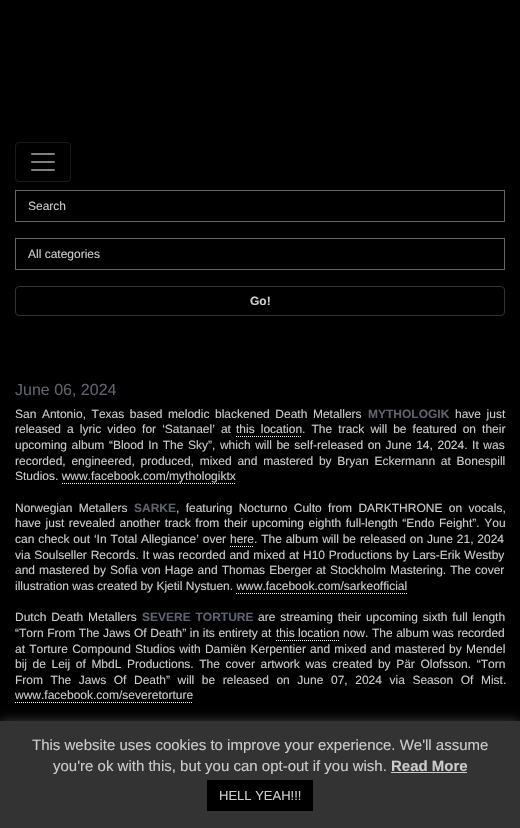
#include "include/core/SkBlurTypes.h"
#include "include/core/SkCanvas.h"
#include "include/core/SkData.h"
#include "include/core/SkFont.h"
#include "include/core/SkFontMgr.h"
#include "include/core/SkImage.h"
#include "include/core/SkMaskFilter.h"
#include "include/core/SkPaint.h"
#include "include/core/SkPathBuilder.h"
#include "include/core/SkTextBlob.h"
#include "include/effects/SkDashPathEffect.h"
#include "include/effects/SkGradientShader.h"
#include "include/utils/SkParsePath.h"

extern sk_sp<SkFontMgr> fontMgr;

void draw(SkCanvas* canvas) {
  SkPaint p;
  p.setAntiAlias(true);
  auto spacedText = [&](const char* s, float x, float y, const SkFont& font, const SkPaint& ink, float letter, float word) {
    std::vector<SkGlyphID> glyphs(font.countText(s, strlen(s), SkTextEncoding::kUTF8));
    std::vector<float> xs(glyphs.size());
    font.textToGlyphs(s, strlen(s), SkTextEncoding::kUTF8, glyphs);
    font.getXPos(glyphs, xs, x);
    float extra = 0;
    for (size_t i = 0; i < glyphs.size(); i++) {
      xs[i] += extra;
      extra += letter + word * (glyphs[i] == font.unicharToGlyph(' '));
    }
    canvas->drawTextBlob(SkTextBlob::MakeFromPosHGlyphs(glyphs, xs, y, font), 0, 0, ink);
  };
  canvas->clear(SK_ColorBLACK);
  p.setStyle(SkPaint::kStroke_Style);
  p.setStrokeWidth(1);
  p.setColor(SkColorSetRGB(26, 26, 26));
  canvas->drawRoundRect(SkRect::MakeLTRB(15.5f, 142.5f, 70.5f, 181.5f), 3.5f, 3.5f, p);
  canvas->drawImageRect(SkImages::DeferredFromEncodedData(SkData::MakeFromFileName("images/1.png")), SkRect::MakeLTRB(31, 153, 55, 171), SkSamplingOptions());
  p.setColor(SkColorSetRGB(102, 102, 102));
  canvas->drawRect(SkRect::MakeLTRB(15.5f, 190.5f, 504.5f, 221.5f), p);
  canvas->drawRect(SkRect::MakeLTRB(15.5f, 238.5f, 504.5f, 269.5f), p);
  p.setColor(SkColorSetRGB(51, 51, 51));
  canvas->drawRoundRect(SkRect::MakeLTRB(15.5f, 286.5f, 504.5f, 315.5f), 3.5f, 3.5f, p);
  p.setColor(SK_ColorWHITE);
  p.setPathEffect(SkDashPathEffect::Make({{1, 1}}, 0));
  canvas->drawPath(SkPathBuilder().moveTo(236, 436.5f).lineTo(302, 436.5f).detach(), p);
  p.setPathEffect(nullptr);
  p.setPathEffect(SkDashPathEffect::Make({{1, 1}}, 0));
  canvas->drawPath(SkPathBuilder().moveTo(62, 483.5f).lineTo(236, 483.5f).detach(), p);
  p.setPathEffect(nullptr);
  p.setPathEffect(SkDashPathEffect::Make({{1, 1}}, 0));
  canvas->drawPath(SkPathBuilder().moveTo(230, 546.5f).lineTo(254, 546.5f).detach(), p);
  p.setPathEffect(nullptr);
  p.setPathEffect(SkDashPathEffect::Make({{1, 1}}, 0));
  canvas->drawPath(SkPathBuilder().moveTo(236, 593.5f).lineTo(407, 593.5f).detach(), p);
  p.setPathEffect(nullptr);
  p.setPathEffect(SkDashPathEffect::Make({{1, 1}}, 0));
  canvas->drawPath(SkPathBuilder().moveTo(276, 640.5f).lineTo(339, 640.5f).detach(), p);
  p.setPathEffect(nullptr);
  p.setPathEffect(SkDashPathEffect::Make({{1, 1}}, 0));
  canvas->drawPath(SkPathBuilder().moveTo(15, 702.5f).lineTo(193, 702.5f).detach(), p);
  p.setPathEffect(nullptr);
  p.setStyle(SkPaint::kFill_Style);
  p.setColor(SkColorSetARGB(77, 172, 171, 171));
  p.setMaskFilter(SkMaskFilter::MakeBlur(kNormal_SkBlurStyle, 5));
  canvas->drawRect(SkRect::MakeLTRB(0, 720, 520, 827), p);
  p.setMaskFilter(nullptr);
  p.setColor(SkColorSetRGB(51, 51, 51));
  canvas->drawRect(SkRect::MakeLTRB(0, 721, 520, 828), p);
  p.setColor(SkColorSetRGB(204, 204, 204));
  canvas->drawRect(SkRect::MakeLTRB(391, 772, 467, 773), p);
  p.setColor(SK_ColorBLACK);
  canvas->drawRect(SkRect::MakeLTRB(207, 780, 313, 811), p);
  SkFont font1(fontMgr->matchFamilyStyle("Liberation Sans", SkFontStyle::Normal()), 12);
  font1.setSubpixel(true);
  p.setColor(SkColorSetRGB(204, 204, 204));
  canvas->drawString("Search", 28, 210, font1, p);
  canvas->drawString("All categories", 28, 258, font1, p);
  SkFont font2(fontMgr->matchFamilyStyle("Liberation Sans", SkFontStyle::Bold()), 12);
  font2.setSubpixel(true);
  canvas->drawString("Go!", 250, 305, font2, p);
  SkFont font3(fontMgr->matchFamilyStyle("Liberation Sans", SkFontStyle::Normal()), 16);
  font3.setSubpixel(true);
  p.setColor(SkColorSetRGB(95, 99, 110));
  canvas->drawString("June 06, 2024", 15, 395, font3, p);
  p.setColor(SkColorSetRGB(204, 204, 204));
  spacedText("San Antonio, Texas based melodic blackened Death Metallers", 15, 418, font1, p, 0, 2.25f);
  p.setColor(SkColorSetRGB(95, 99, 110));
  canvas->drawString("MYTHOLOGIK", 368, 418, font2, p);
  p.setColor(SkColorSetRGB(204, 204, 204));
  spacedText("have just", 455, 418, font1, p, 0, 2.25f);
  spacedText("released a lyric video for ‘Satanael’ at", 15, 433, font1, p, 0, 2.75f);
  spacedText("this location. The track will be featured on their", 236, 433, font1, p, 0, 2.75f);
  spacedText("upcoming album “Blood In The Sky”, which will be self-released on June 14, 2024. It was", 15, 449, font1, p, 0, 1.25f);
  spacedText("recorded, engineered, produced, mixed and mastered by Bryan Eckermann at Bonespill", 15, 465, font1, p, 0, 2.4f);
  canvas->drawString("Studios. www.facebook.com/mythologiktx", 15, 480, font1, p);
  spacedText("Norwegian Metallers", 15, 512, font1, p, 0, 3);
  p.setColor(SkColorSetRGB(95, 99, 110));
  canvas->drawString("SARKE", 134, 512, font2, p);
  p.setColor(SkColorSetRGB(204, 204, 204));
  spacedText(", featuring Nocturno Culto from DARKTHRONE on vocals,", 176, 512, font1, p, 0, 3);
  spacedText("have just revealed another track from their upcoming eighth full-length “Endo Feight”. You", 15, 527, font1, p, 0, 1.25f);
  spacedText("can check out ‘In Total Allegiance’ over", 15, 543, font1, p, 0, 0.5f);
  canvas->drawString("here", 230, 543, font1, p);
  spacedText(". The album will be released on June 21, 2024", 254, 543, font1, p, 0, 0.5f);
  spacedText("via Soulseller Records. It was recorded and mixed at H10 Productions by Lars-Erik Westby", 15, 559, font1, p, 0, 0.5f);
  spacedText("and mastered by Sofia von Hage and Thomas Eberger at Stockholm Mastering. The cover", 15, 574, font1, p, 0, 0.75f);
  canvas->drawString("illustration was created by Kjetil Nystuen. www.facebook.com/sarkeofficial", 15, 590, font1, p);
  spacedText("Dutch Death Metallers", 15, 621, font1, p, 0, 1.5f);
  p.setColor(SkColorSetRGB(95, 99, 110));
  spacedText("SEVERE TORTURE", 142, 621, font2, p, 0, 1.5f);
  p.setColor(SkColorSetRGB(204, 204, 204));
  spacedText("are streaming their upcoming sixth full length", 258, 621, font1, p, 0, 1.5f);
  spacedText("“Torn From The Jaws Of Death” in its entirety at", 15, 637, font1, p, 0, 0.25f);
  canvas->drawString("this location", 276, 637, font1, p);
  spacedText("now. The album was recorded", 343, 637, font1, p, 0, 0.25f);
  spacedText("at Torture Compound Studios with Damiën Kerpentier and mixed and mastered by Mendel", 15, 653, font1, p, 0, 0.9f);
  spacedText("bij de Leij of MbdL Productions. The cover artwork was created by Pär Olofsson. “Torn", 15, 668, font1, p, 0, 2.25f);
  spacedText("From The Jaws Of Death” will be released on June 07, 2024 via Season Of Mist.", 15, 684, font1, p, 0, 4.25f);
  canvas->drawString("www.facebook.com/severetorture", 15, 699, font1, p);
  SkFont font4(fontMgr->matchFamilyStyle("Liberation Sans", SkFontStyle::Normal()), 15);
  font4.setSubpixel(true);
  canvas->drawString("This website uses cookies to improve your experience. We'll assume", 32, 750, font4, p);
  canvas->drawString("you're ok with this, but you can opt-out if you wish.", 53, 771, font4, p);
  SkFont font5(fontMgr->matchFamilyStyle("Liberation Sans", SkFontStyle::Bold()), 15);
  font5.setSubpixel(true);
  canvas->drawString("Read More", 391, 771, font5, p);
  SkFont font6(fontMgr->matchFamilyStyle("Liberation Sans", SkFontStyle::Normal()), 13);
  font6.setSubpixel(true);
  canvas->drawString("HELL YEAH!!!", 219, 800, font6, p);
}
